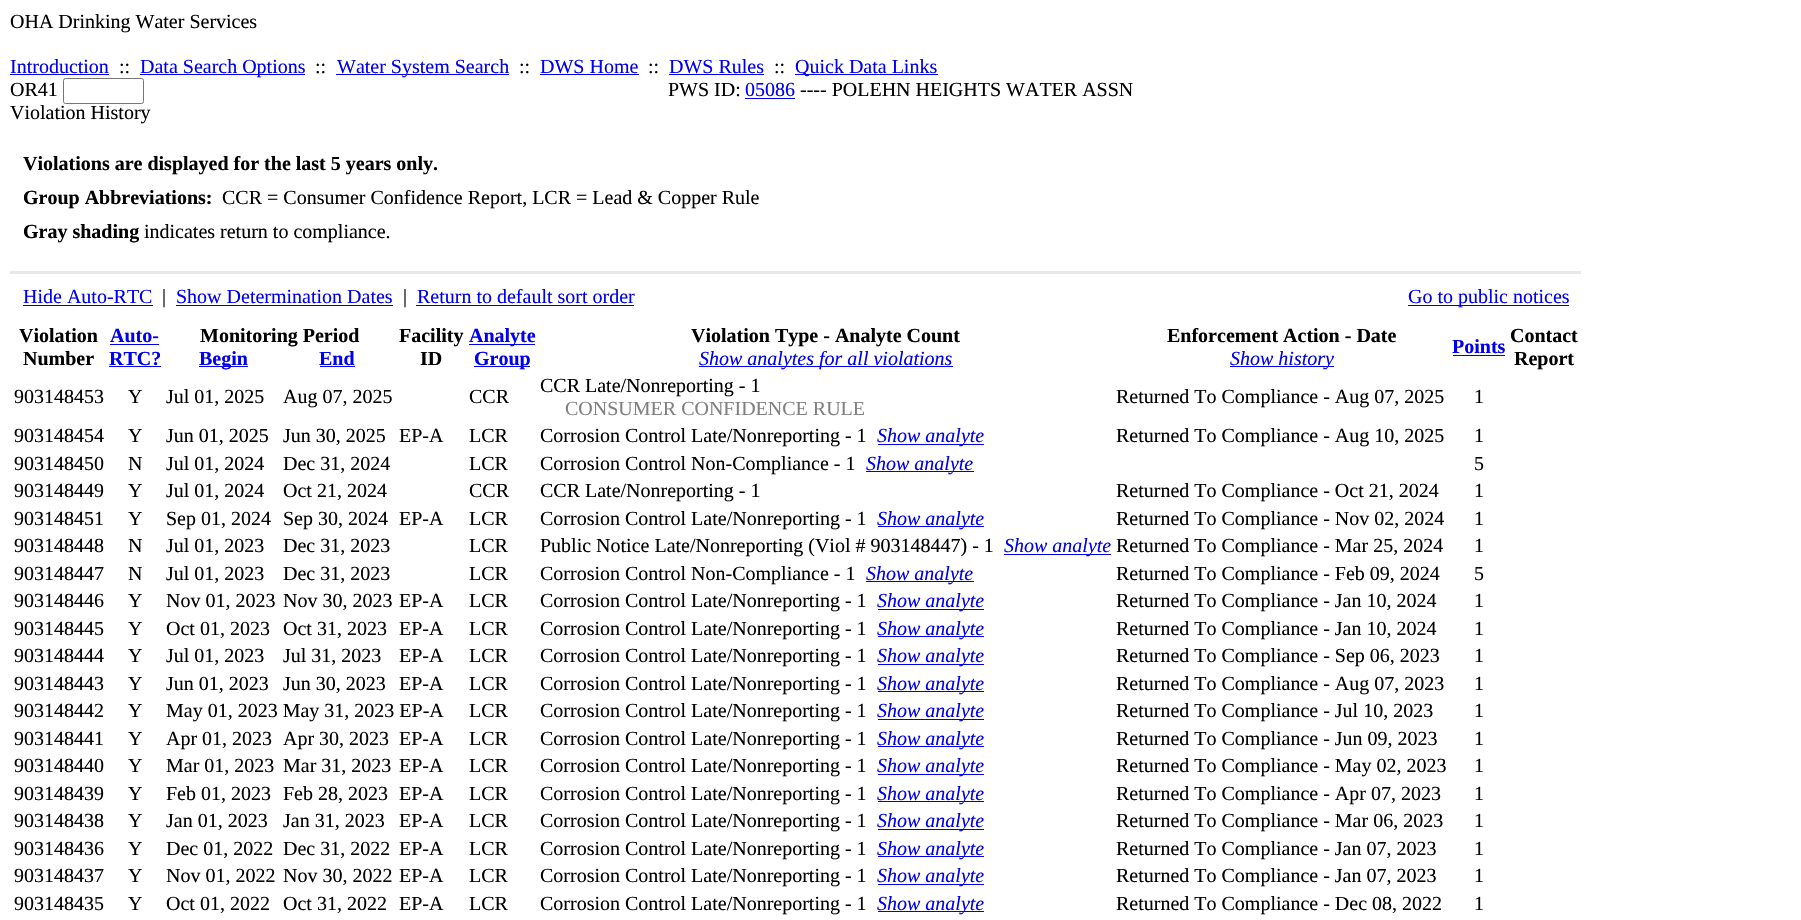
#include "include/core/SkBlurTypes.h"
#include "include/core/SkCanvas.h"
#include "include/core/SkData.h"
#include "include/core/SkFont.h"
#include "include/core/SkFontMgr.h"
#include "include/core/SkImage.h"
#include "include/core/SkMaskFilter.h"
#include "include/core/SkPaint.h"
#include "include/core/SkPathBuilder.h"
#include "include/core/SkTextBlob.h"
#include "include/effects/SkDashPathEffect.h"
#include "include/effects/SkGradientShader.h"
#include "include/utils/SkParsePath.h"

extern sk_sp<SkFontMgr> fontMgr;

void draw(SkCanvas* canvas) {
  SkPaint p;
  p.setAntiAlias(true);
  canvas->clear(SK_ColorWHITE);
  p.setColor(SkColorSetRGB(0, 0, 238));
  canvas->drawRect(SkRect::MakeLTRB(10, 74, 109, 75), p);
  canvas->drawRect(SkRect::MakeLTRB(140, 74, 305, 75), p);
  canvas->drawRect(SkRect::MakeLTRB(336, 74, 509, 75), p);
  canvas->drawRect(SkRect::MakeLTRB(540, 74, 639, 75), p);
  canvas->drawRect(SkRect::MakeLTRB(669, 74, 764, 75), p);
  canvas->drawRect(SkRect::MakeLTRB(795, 74, 938, 75), p);
  p.setStyle(SkPaint::kStroke_Style);
  p.setStrokeWidth(1);
  p.setColor(SkColorSetRGB(118, 118, 118));
  canvas->drawRoundRect(SkRect::MakeLTRB(63.5f, 78.5f, 143.5f, 103.5f), 2, 2, p);
  p.setStyle(SkPaint::kFill_Style);
  p.setColor(SkColorSetRGB(0, 0, 238));
  canvas->drawRect(SkRect::MakeLTRB(745, 98, 795, 99), p);
  p.setColor(SkColorSetRGB(232, 232, 232));
  canvas->drawRect(SkRect::MakeLTRB(10, 271, 1581, 274), p);
  p.setColor(SkColorSetRGB(0, 0, 238));
  canvas->drawRect(SkRect::MakeLTRB(23, 305, 153, 306), p);
  canvas->drawRect(SkRect::MakeLTRB(176, 305, 393, 306), p);
  canvas->drawRect(SkRect::MakeLTRB(416, 305, 634, 306), p);
  canvas->drawRect(SkRect::MakeLTRB(1408, 305, 1569, 306), p);
  canvas->drawRect(SkRect::MakeLTRB(110, 344, 159, 345), p);
  canvas->drawRect(SkRect::MakeLTRB(109, 366, 161, 367), p);
  canvas->drawRect(SkRect::MakeLTRB(199, 366, 248, 367), p);
  canvas->drawRect(SkRect::MakeLTRB(320, 366, 355, 367), p);
  canvas->drawRect(SkRect::MakeLTRB(469, 344, 535, 345), p);
  canvas->drawRect(SkRect::MakeLTRB(474, 366, 530, 367), p);
  canvas->drawRect(SkRect::MakeLTRB(699, 366, 953, 367), p);
  canvas->drawRect(SkRect::MakeLTRB(1230, 366, 1334, 367), p);
  canvas->drawRect(SkRect::MakeLTRB(1453, 355, 1505, 356), p);
  canvas->drawRect(SkRect::MakeLTRB(878, 444, 984, 445), p);
  canvas->drawRect(SkRect::MakeLTRB(866, 471, 974, 472), p);
  canvas->drawRect(SkRect::MakeLTRB(878, 526, 984, 527), p);
  canvas->drawRect(SkRect::MakeLTRB(1004, 554, 1111, 555), p);
  canvas->drawRect(SkRect::MakeLTRB(866, 581, 974, 582), p);
  canvas->drawRect(SkRect::MakeLTRB(878, 609, 984, 610), p);
  canvas->drawRect(SkRect::MakeLTRB(878, 636, 984, 637), p);
  canvas->drawRect(SkRect::MakeLTRB(878, 664, 984, 665), p);
  canvas->drawRect(SkRect::MakeLTRB(878, 691, 984, 692), p);
  canvas->drawRect(SkRect::MakeLTRB(878, 719, 984, 720), p);
  canvas->drawRect(SkRect::MakeLTRB(878, 746, 984, 747), p);
  canvas->drawRect(SkRect::MakeLTRB(878, 774, 984, 775), p);
  canvas->drawRect(SkRect::MakeLTRB(878, 801, 984, 802), p);
  canvas->drawRect(SkRect::MakeLTRB(878, 829, 984, 830), p);
  canvas->drawRect(SkRect::MakeLTRB(878, 856, 984, 857), p);
  canvas->drawRect(SkRect::MakeLTRB(878, 884, 984, 885), p);
  canvas->drawRect(SkRect::MakeLTRB(878, 911, 984, 912), p);
  SkFont font1(fontMgr->matchFamilyStyle("Liberation Serif", SkFontStyle::Normal()), 20);
  font1.setSubpixel(true);
  p.setColor(SK_ColorBLACK);
  canvas->drawString("OHA Drinking Water Services", 10, 28, font1, p);
  p.setColor(SkColorSetRGB(0, 0, 238));
  canvas->drawString("Introduction", 10, 73, font1, p);
  p.setColor(SK_ColorBLACK);
  canvas->drawString("::", 119, 73, font1, p);
  p.setColor(SkColorSetRGB(0, 0, 238));
  canvas->drawString("Data Search Options", 140, 73, font1, p);
  p.setColor(SK_ColorBLACK);
  canvas->drawString("::", 315, 73, font1, p);
  p.setColor(SkColorSetRGB(0, 0, 238));
  canvas->drawString("Water System Search", 337, 73, font1, p);
  p.setColor(SK_ColorBLACK);
  canvas->drawString("::", 519, 73, font1, p);
  p.setColor(SkColorSetRGB(0, 0, 238));
  canvas->drawString("DWS Home", 540, 73, font1, p);
  p.setColor(SK_ColorBLACK);
  canvas->drawString("::", 648, 73, font1, p);
  p.setColor(SkColorSetRGB(0, 0, 238));
  canvas->drawString("DWS Rules", 669, 73, font1, p);
  p.setColor(SK_ColorBLACK);
  canvas->drawString("::", 774, 73, font1, p);
  p.setColor(SkColorSetRGB(0, 0, 238));
  canvas->drawString("Quick Data Links", 795, 73, font1, p);
  p.setColor(SK_ColorBLACK);
  canvas->drawString("OR41", 10, 96, font1, p);
  canvas->drawString("PWS ID:", 668, 96, font1, p);
  p.setColor(SkColorSetRGB(0, 0, 238));
  canvas->drawString("05086", 745, 96, font1, p);
  p.setColor(SK_ColorBLACK);
  canvas->drawString("---- POLEHN HEIGHTS WATER ASSN", 800, 96, font1, p);
  canvas->drawString("Violation History", 10, 119, font1, p);
  SkFont font2(fontMgr->matchFamilyStyle("Liberation Serif", SkFontStyle::Bold()), 20);
  font2.setSubpixel(true);
  canvas->drawString("Violations are displayed for the last 5 years only.", 23, 170, font2, p);
  canvas->drawString("Group Abbreviations:", 23, 204, font2, p);
  canvas->drawString("CCR = Consumer Confidence Report, LCR = Lead & Copper Rule", 222, 204, font1, p);
  canvas->drawString("Gray shading", 23, 238, font2, p);
  canvas->drawString("indicates return to compliance.", 144, 238, font1, p);
  p.setColor(SkColorSetRGB(0, 0, 238));
  canvas->drawString("Hide Auto-RTC", 23, 303, font1, p);
  p.setColor(SK_ColorBLACK);
  canvas->drawString("|", 162, 303, font1, p);
  p.setColor(SkColorSetRGB(0, 0, 238));
  canvas->drawString("Show Determination Dates", 176, 303, font1, p);
  p.setColor(SK_ColorBLACK);
  canvas->drawString("|", 403, 303, font1, p);
  p.setColor(SkColorSetRGB(0, 0, 238));
  canvas->drawString("Return to default sort order", 417, 303, font1, p);
  canvas->drawString("Go to public notices", 1408, 303, font1, p);
  p.setColor(SK_ColorBLACK);
  canvas->drawString("Violation", 19, 342, font2, p);
  canvas->drawString("Number", 23, 365, font2, p);
  p.setColor(SkColorSetRGB(0, 0, 238));
  canvas->drawString("Auto-", 110, 342, font2, p);
  canvas->drawString("RTC?", 109, 365, font2, p);
  p.setColor(SK_ColorBLACK);
  canvas->drawString("Monitoring Period", 200, 342, font2, p);
  p.setColor(SkColorSetRGB(0, 0, 238));
  canvas->drawString("Begin", 199, 365, font2, p);
  canvas->drawString("End", 319, 365, font2, p);
  p.setColor(SK_ColorBLACK);
  canvas->drawString("Facility", 399, 342, font2, p);
  canvas->drawString("ID", 420, 365, font2, p);
  p.setColor(SkColorSetRGB(0, 0, 238));
  canvas->drawString("Analyte", 469, 342, font2, p);
  canvas->drawString("Group", 474, 365, font2, p);
  p.setColor(SK_ColorBLACK);
  canvas->drawString("Violation Type - Analyte Count", 691, 342, font2, p);
  SkFont font3(fontMgr->matchFamilyStyle("Liberation Serif", SkFontStyle::Italic()), 20);
  font3.setSubpixel(true);
  p.setColor(SkColorSetRGB(0, 0, 238));
  canvas->drawString("Show analytes for all violations", 699, 365, font3, p);
  p.setColor(SK_ColorBLACK);
  canvas->drawString("Enforcement Action - Date", 1167, 342, font2, p);
  p.setColor(SkColorSetRGB(0, 0, 238));
  canvas->drawString("Show history", 1230, 365, font3, p);
  canvas->drawString("Points", 1452, 353, font2, p);
  p.setColor(SK_ColorBLACK);
  canvas->drawString("Contact", 1510, 342, font2, p);
  canvas->drawString("Report", 1514, 365, font2, p);
  canvas->drawString("903148453", 14, 403, font1, p);
  canvas->drawString("Y", 128, 403, font1, p);
  canvas->drawString("Jul 01, 2025", 166, 403, font1, p);
  canvas->drawString("Aug 07, 2025", 283, 403, font1, p);
  canvas->drawString("CCR", 469, 403, font1, p);
  canvas->drawString("CCR Late/Nonreporting - 1", 540, 392, font1, p);
  p.setColor(SkColorSetRGB(128, 128, 128));
  canvas->drawString("CONSUMER CONFIDENCE RULE", 565, 415, font1, p);
  p.setColor(SK_ColorBLACK);
  canvas->drawString("Returned To Compliance - Aug 07, 2025", 1116, 403, font1, p);
  canvas->drawString("1", 1474, 403, font1, p);
  canvas->drawString("903148454", 14, 442, font1, p);
  canvas->drawString("Y", 128, 442, font1, p);
  canvas->drawString("Jun 01, 2025", 166, 442, font1, p);
  canvas->drawString("Jun 30, 2025", 283, 442, font1, p);
  canvas->drawString("EP-A", 399, 442, font1, p);
  canvas->drawString("LCR", 469, 442, font1, p);
  canvas->drawString("Corrosion Control Late/Nonreporting - 1", 540, 442, font1, p);
  p.setColor(SkColorSetRGB(0, 0, 238));
  canvas->drawString("Show analyte", 877, 442, font3, p);
  p.setColor(SK_ColorBLACK);
  canvas->drawString("Returned To Compliance - Aug 10, 2025", 1116, 442, font1, p);
  canvas->drawString("1", 1474, 442, font1, p);
  canvas->drawString("903148450", 14, 470, font1, p);
  canvas->drawString("N", 128, 470, font1, p);
  canvas->drawString("Jul 01, 2024", 166, 470, font1, p);
  canvas->drawString("Dec 31, 2024", 283, 470, font1, p);
  canvas->drawString("LCR", 469, 470, font1, p);
  canvas->drawString("Corrosion Control Non-Compliance - 1", 540, 470, font1, p);
  p.setColor(SkColorSetRGB(0, 0, 238));
  canvas->drawString("Show analyte", 866, 470, font3, p);
  p.setColor(SK_ColorBLACK);
  canvas->drawString("5", 1474, 470, font1, p);
  canvas->drawString("903148449", 14, 497, font1, p);
  canvas->drawString("Y", 128, 497, font1, p);
  canvas->drawString("Jul 01, 2024", 166, 497, font1, p);
  canvas->drawString("Oct 21, 2024", 283, 497, font1, p);
  canvas->drawString("CCR", 469, 497, font1, p);
  canvas->drawString("CCR Late/Nonreporting - 1", 540, 497, font1, p);
  canvas->drawString("Returned To Compliance - Oct 21, 2024", 1116, 497, font1, p);
  canvas->drawString("1", 1474, 497, font1, p);
  canvas->drawString("903148451", 14, 525, font1, p);
  canvas->drawString("Y", 128, 525, font1, p);
  canvas->drawString("Sep 01, 2024", 166, 525, font1, p);
  canvas->drawString("Sep 30, 2024", 283, 525, font1, p);
  canvas->drawString("EP-A", 399, 525, font1, p);
  canvas->drawString("LCR", 469, 525, font1, p);
  canvas->drawString("Corrosion Control Late/Nonreporting - 1", 540, 525, font1, p);
  p.setColor(SkColorSetRGB(0, 0, 238));
  canvas->drawString("Show analyte", 877, 525, font3, p);
  p.setColor(SK_ColorBLACK);
  canvas->drawString("Returned To Compliance - Nov 02, 2024", 1116, 525, font1, p);
  canvas->drawString("1", 1474, 525, font1, p);
  canvas->drawString("903148448", 14, 552, font1, p);
  canvas->drawString("N", 128, 552, font1, p);
  canvas->drawString("Jul 01, 2023", 166, 552, font1, p);
  canvas->drawString("Dec 31, 2023", 283, 552, font1, p);
  canvas->drawString("LCR", 469, 552, font1, p);
  canvas->drawString("Public Notice Late/Nonreporting (Viol # 903148447) - 1", 540, 552, font1, p);
  p.setColor(SkColorSetRGB(0, 0, 238));
  canvas->drawString("Show analyte", 1004, 552, font3, p);
  p.setColor(SK_ColorBLACK);
  canvas->drawString("Returned To Compliance - Mar 25, 2024", 1116, 552, font1, p);
  canvas->drawString("1", 1474, 552, font1, p);
  canvas->drawString("903148447", 14, 580, font1, p);
  canvas->drawString("N", 128, 580, font1, p);
  canvas->drawString("Jul 01, 2023", 166, 580, font1, p);
  canvas->drawString("Dec 31, 2023", 283, 580, font1, p);
  canvas->drawString("LCR", 469, 580, font1, p);
  canvas->drawString("Corrosion Control Non-Compliance - 1", 540, 580, font1, p);
  p.setColor(SkColorSetRGB(0, 0, 238));
  canvas->drawString("Show analyte", 866, 580, font3, p);
  p.setColor(SK_ColorBLACK);
  canvas->drawString("Returned To Compliance - Feb 09, 2024", 1116, 580, font1, p);
  canvas->drawString("5", 1474, 580, font1, p);
  canvas->drawString("903148446", 14, 607, font1, p);
  canvas->drawString("Y", 128, 607, font1, p);
  canvas->drawString("Nov 01, 2023", 166, 607, font1, p);
  canvas->drawString("Nov 30, 2023", 283, 607, font1, p);
  canvas->drawString("EP-A", 399, 607, font1, p);
  canvas->drawString("LCR", 469, 607, font1, p);
  canvas->drawString("Corrosion Control Late/Nonreporting - 1", 540, 607, font1, p);
  p.setColor(SkColorSetRGB(0, 0, 238));
  canvas->drawString("Show analyte", 877, 607, font3, p);
  p.setColor(SK_ColorBLACK);
  canvas->drawString("Returned To Compliance - Jan 10, 2024", 1116, 607, font1, p);
  canvas->drawString("1", 1474, 607, font1, p);
  canvas->drawString("903148445", 14, 635, font1, p);
  canvas->drawString("Y", 128, 635, font1, p);
  canvas->drawString("Oct 01, 2023", 166, 635, font1, p);
  canvas->drawString("Oct 31, 2023", 283, 635, font1, p);
  canvas->drawString("EP-A", 399, 635, font1, p);
  canvas->drawString("LCR", 469, 635, font1, p);
  canvas->drawString("Corrosion Control Late/Nonreporting - 1", 540, 635, font1, p);
  p.setColor(SkColorSetRGB(0, 0, 238));
  canvas->drawString("Show analyte", 877, 635, font3, p);
  p.setColor(SK_ColorBLACK);
  canvas->drawString("Returned To Compliance - Jan 10, 2024", 1116, 635, font1, p);
  canvas->drawString("1", 1474, 635, font1, p);
  canvas->drawString("903148444", 14, 662, font1, p);
  canvas->drawString("Y", 128, 662, font1, p);
  canvas->drawString("Jul 01, 2023", 166, 662, font1, p);
  canvas->drawString("Jul 31, 2023", 283, 662, font1, p);
  canvas->drawString("EP-A", 399, 662, font1, p);
  canvas->drawString("LCR", 469, 662, font1, p);
  canvas->drawString("Corrosion Control Late/Nonreporting - 1", 540, 662, font1, p);
  p.setColor(SkColorSetRGB(0, 0, 238));
  canvas->drawString("Show analyte", 877, 662, font3, p);
  p.setColor(SK_ColorBLACK);
  canvas->drawString("Returned To Compliance - Sep 06, 2023", 1116, 662, font1, p);
  canvas->drawString("1", 1474, 662, font1, p);
  canvas->drawString("903148443", 14, 690, font1, p);
  canvas->drawString("Y", 128, 690, font1, p);
  canvas->drawString("Jun 01, 2023", 166, 690, font1, p);
  canvas->drawString("Jun 30, 2023", 283, 690, font1, p);
  canvas->drawString("EP-A", 399, 690, font1, p);
  canvas->drawString("LCR", 469, 690, font1, p);
  canvas->drawString("Corrosion Control Late/Nonreporting - 1", 540, 690, font1, p);
  p.setColor(SkColorSetRGB(0, 0, 238));
  canvas->drawString("Show analyte", 877, 690, font3, p);
  p.setColor(SK_ColorBLACK);
  canvas->drawString("Returned To Compliance - Aug 07, 2023", 1116, 690, font1, p);
  canvas->drawString("1", 1474, 690, font1, p);
  canvas->drawString("903148442", 14, 717, font1, p);
  canvas->drawString("Y", 128, 717, font1, p);
  canvas->drawString("May 01, 2023 May 31, 2023 EP-A", 166, 717, font1, p);
  canvas->drawString("LCR", 469, 717, font1, p);
  canvas->drawString("Corrosion Control Late/Nonreporting - 1", 540, 717, font1, p);
  p.setColor(SkColorSetRGB(0, 0, 238));
  canvas->drawString("Show analyte", 877, 717, font3, p);
  p.setColor(SK_ColorBLACK);
  canvas->drawString("Returned To Compliance - Jul 10, 2023", 1116, 717, font1, p);
  canvas->drawString("1", 1474, 717, font1, p);
  canvas->drawString("903148441", 14, 745, font1, p);
  canvas->drawString("Y", 128, 745, font1, p);
  canvas->drawString("Apr 01, 2023", 166, 745, font1, p);
  canvas->drawString("Apr 30, 2023", 283, 745, font1, p);
  canvas->drawString("EP-A", 399, 745, font1, p);
  canvas->drawString("LCR", 469, 745, font1, p);
  canvas->drawString("Corrosion Control Late/Nonreporting - 1", 540, 745, font1, p);
  p.setColor(SkColorSetRGB(0, 0, 238));
  canvas->drawString("Show analyte", 877, 745, font3, p);
  p.setColor(SK_ColorBLACK);
  canvas->drawString("Returned To Compliance - Jun 09, 2023", 1116, 745, font1, p);
  canvas->drawString("1", 1474, 745, font1, p);
  canvas->drawString("903148440", 14, 772, font1, p);
  canvas->drawString("Y", 128, 772, font1, p);
  canvas->drawString("Mar 01, 2023", 166, 772, font1, p);
  canvas->drawString("Mar 31, 2023", 283, 772, font1, p);
  canvas->drawString("EP-A", 399, 772, font1, p);
  canvas->drawString("LCR", 469, 772, font1, p);
  canvas->drawString("Corrosion Control Late/Nonreporting - 1", 540, 772, font1, p);
  p.setColor(SkColorSetRGB(0, 0, 238));
  canvas->drawString("Show analyte", 877, 772, font3, p);
  p.setColor(SK_ColorBLACK);
  canvas->drawString("Returned To Compliance - May 02, 2023", 1116, 772, font1, p);
  canvas->drawString("1", 1474, 772, font1, p);
  canvas->drawString("903148439", 14, 800, font1, p);
  canvas->drawString("Y", 128, 800, font1, p);
  canvas->drawString("Feb 01, 2023", 166, 800, font1, p);
  canvas->drawString("Feb 28, 2023", 283, 800, font1, p);
  canvas->drawString("EP-A", 399, 800, font1, p);
  canvas->drawString("LCR", 469, 800, font1, p);
  canvas->drawString("Corrosion Control Late/Nonreporting - 1", 540, 800, font1, p);
  p.setColor(SkColorSetRGB(0, 0, 238));
  canvas->drawString("Show analyte", 877, 800, font3, p);
  p.setColor(SK_ColorBLACK);
  canvas->drawString("Returned To Compliance - Apr 07, 2023", 1116, 800, font1, p);
  canvas->drawString("1", 1474, 800, font1, p);
  canvas->drawString("903148438", 14, 827, font1, p);
  canvas->drawString("Y", 128, 827, font1, p);
  canvas->drawString("Jan 01, 2023", 166, 827, font1, p);
  canvas->drawString("Jan 31, 2023", 283, 827, font1, p);
  canvas->drawString("EP-A", 399, 827, font1, p);
  canvas->drawString("LCR", 469, 827, font1, p);
  canvas->drawString("Corrosion Control Late/Nonreporting - 1", 540, 827, font1, p);
  p.setColor(SkColorSetRGB(0, 0, 238));
  canvas->drawString("Show analyte", 877, 827, font3, p);
  p.setColor(SK_ColorBLACK);
  canvas->drawString("Returned To Compliance - Mar 06, 2023", 1116, 827, font1, p);
  canvas->drawString("1", 1474, 827, font1, p);
  canvas->drawString("903148436", 14, 855, font1, p);
  canvas->drawString("Y", 128, 855, font1, p);
  canvas->drawString("Dec 01, 2022", 166, 855, font1, p);
  canvas->drawString("Dec 31, 2022", 283, 855, font1, p);
  canvas->drawString("EP-A", 399, 855, font1, p);
  canvas->drawString("LCR", 469, 855, font1, p);
  canvas->drawString("Corrosion Control Late/Nonreporting - 1", 540, 855, font1, p);
  p.setColor(SkColorSetRGB(0, 0, 238));
  canvas->drawString("Show analyte", 877, 855, font3, p);
  p.setColor(SK_ColorBLACK);
  canvas->drawString("Returned To Compliance - Jan 07, 2023", 1116, 855, font1, p);
  canvas->drawString("1", 1474, 855, font1, p);
  canvas->drawString("903148437", 14, 882, font1, p);
  canvas->drawString("Y", 128, 882, font1, p);
  canvas->drawString("Nov 01, 2022", 166, 882, font1, p);
  canvas->drawString("Nov 30, 2022", 283, 882, font1, p);
  canvas->drawString("EP-A", 399, 882, font1, p);
  canvas->drawString("LCR", 469, 882, font1, p);
  canvas->drawString("Corrosion Control Late/Nonreporting - 1", 540, 882, font1, p);
  p.setColor(SkColorSetRGB(0, 0, 238));
  canvas->drawString("Show analyte", 877, 882, font3, p);
  p.setColor(SK_ColorBLACK);
  canvas->drawString("Returned To Compliance - Jan 07, 2023", 1116, 882, font1, p);
  canvas->drawString("1", 1474, 882, font1, p);
  canvas->drawString("903148435", 14, 910, font1, p);
  canvas->drawString("Y", 128, 910, font1, p);
  canvas->drawString("Oct 01, 2022", 166, 910, font1, p);
  canvas->drawString("Oct 31, 2022", 283, 910, font1, p);
  canvas->drawString("EP-A", 399, 910, font1, p);
  canvas->drawString("LCR", 469, 910, font1, p);
  canvas->drawString("Corrosion Control Late/Nonreporting - 1", 540, 910, font1, p);
  p.setColor(SkColorSetRGB(0, 0, 238));
  canvas->drawString("Show analyte", 877, 910, font3, p);
  p.setColor(SK_ColorBLACK);
  canvas->drawString("Returned To Compliance - Dec 08, 2022", 1116, 910, font1, p);
  canvas->drawString("1", 1474, 910, font1, p);
}
